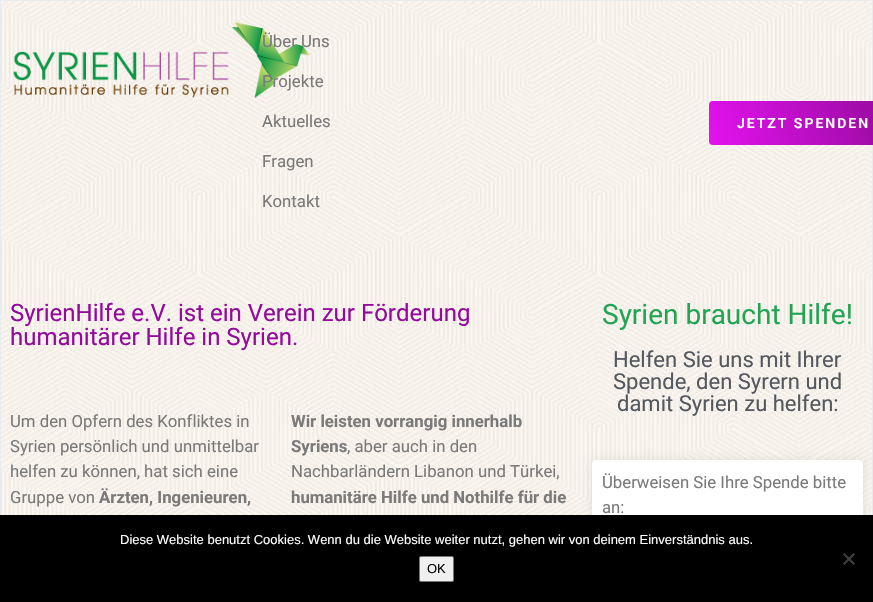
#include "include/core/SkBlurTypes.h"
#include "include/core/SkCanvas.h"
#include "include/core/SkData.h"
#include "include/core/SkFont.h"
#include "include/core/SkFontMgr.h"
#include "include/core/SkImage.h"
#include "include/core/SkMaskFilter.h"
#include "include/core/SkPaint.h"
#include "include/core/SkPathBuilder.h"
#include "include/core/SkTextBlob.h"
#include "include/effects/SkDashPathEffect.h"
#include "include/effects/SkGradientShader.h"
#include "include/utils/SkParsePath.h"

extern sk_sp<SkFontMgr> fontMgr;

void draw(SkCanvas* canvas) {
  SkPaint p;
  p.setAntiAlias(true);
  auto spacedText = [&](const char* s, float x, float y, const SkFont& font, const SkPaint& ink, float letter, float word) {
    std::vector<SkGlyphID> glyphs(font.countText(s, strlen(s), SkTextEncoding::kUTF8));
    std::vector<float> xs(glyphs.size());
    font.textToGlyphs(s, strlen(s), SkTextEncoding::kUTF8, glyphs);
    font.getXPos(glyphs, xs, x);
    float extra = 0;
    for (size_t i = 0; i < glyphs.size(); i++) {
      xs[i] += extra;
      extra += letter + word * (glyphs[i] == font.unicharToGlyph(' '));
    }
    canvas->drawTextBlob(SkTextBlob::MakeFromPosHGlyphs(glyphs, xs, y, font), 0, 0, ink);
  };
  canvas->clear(SK_ColorWHITE);
  canvas->drawImageRect(SkImages::DeferredFromEncodedData(SkData::MakeFromFileName("images/1.png")), SkRect::MakeLTRB(1, 1, 872, 515), SkSamplingOptions());
  p.setStyle(SkPaint::kStroke_Style);
  p.setStrokeWidth(1);
  p.setColor(SkColorSetRGB(233, 236, 239));
  canvas->drawRect(SkRect::MakeLTRB(0.5f, 0.5f, 872.5f, 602.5f), p);
  canvas->drawImageRect(SkImages::DeferredFromEncodedData(SkData::MakeFromFileName("images/2.png")), SkRect::MakeLTRB(13, 22, 310, 98), SkSamplingOptions());
  p.setStyle(SkPaint::kFill_Style);
  {
    const SkColor colors[] = {SkColorSetRGB(147, 11, 154), SkColorSetRGB(228, 18, 239)};
    const float stops[] = {0, 1};
    const SkPoint ends[] = {{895, 90}, {713, 156}};
    p.setShader(SkGradientShader::MakeLinear(ends, colors, stops, 2, SkTileMode::kClamp));
    p.setAlpha(255);
  }
  canvas->drawRoundRect(SkRect::MakeLTRB(709, 101, 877, 145), 4, 4, p);
  p.setShader(nullptr);
  p.setColor(SkColorSetARGB(23, 0, 0, 0));
  p.setMaskFilter(SkMaskFilter::MakeBlur(kNormal_SkBlurStyle, 5));
  canvas->drawRoundRect(SkRect::MakeLTRB(592, 460, 863, 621), 4, 4, p);
  p.setMaskFilter(nullptr);
  p.setColor(SK_ColorWHITE);
  canvas->drawRoundRect(SkRect::MakeLTRB(592, 460, 863, 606), 4, 4, p);
  p.setColor(SK_ColorBLACK);
  canvas->drawRect(SkRect::MakeLTRB(0, 515, 873, 602), p);
  p.setColor(SkColorSetRGB(64, 64, 64));
  canvas->drawPath(SkPathBuilder().moveTo(853.5f, 553).lineTo(855, 554.5f).lineTo(844.5f, 565).lineTo(843, 563.5f).close().detach(), p);
  canvas->drawPath(SkPathBuilder().moveTo(843, 554.5f).lineTo(844.5f, 553).lineTo(855, 563.5f).lineTo(853.5f, 565).close().detach(), p);
  p.setColor(SkColorSetRGB(239, 239, 239));
  canvas->drawRoundRect(SkRect::MakeLTRB(419.5f, 556.5f, 453.5f, 581.5f), 1.5f, 1.5f, p);
  p.setStyle(SkPaint::kStroke_Style);
  p.setColor(SkColorSetRGB(118, 118, 118));
  canvas->drawRoundRect(SkRect::MakeLTRB(419.5f, 556.5f, 453.5f, 581.5f), 1.5f, 1.5f, p);
  SkFont font1(fontMgr->matchFamilyStyle("Roboto", SkFontStyle::Normal()), 16.75f);
  font1.setSubpixel(true);
  p.setStyle(SkPaint::kFill_Style);
  p.setColor(SkColorSetRGB(122, 122, 122));
  canvas->drawString("Über Uns", 262, 47, font1, p);
  canvas->drawString("Projekte", 262, 87, font1, p);
  canvas->drawString("Aktuelles", 262, 127, font1, p);
  canvas->drawString("Fragen", 262, 167, font1, p);
  canvas->drawString("Kontakt", 262, 207, font1, p);
  SkFont font2(fontMgr->matchFamilyStyle("Roboto", SkFontStyle(600, SkFontStyle::kNormal_Width, SkFontStyle::kUpright_Slant)), 14);
  font2.setSubpixel(true);
  p.setColor(SK_ColorWHITE);
  spacedText("JETZT SPENDEN", 737, 128, font2, p, 2, 0);
  SkFont font3(fontMgr->matchFamilyStyle("Roboto", SkFontStyle::Normal()), 24);
  font3.setSubpixel(true);
  p.setColor(SkColorSetRGB(147, 11, 154));
  canvas->drawString("SyrienHilfe e.V. ist ein Verein zur Förderung", 10, 321, font3, p);
  canvas->drawString("humanitärer Hilfe in Syrien.", 10, 345, font3, p);
  p.setColor(SkColorSetRGB(122, 122, 122));
  canvas->drawString("Um den Opfern des Konfliktes in", 10, 427, font1, p);
  canvas->drawString("Syrien persönlich und unmittelbar", 10, 452, font1, p);
  canvas->drawString("helfen zu können, hat sich eine", 10, 477, font1, p);
  canvas->drawString("Gruppe von", 10, 503, font1, p);
  SkFont font4(fontMgr->matchFamilyStyle("Roboto", SkFontStyle::Bold()), 16.75f);
  font4.setSubpixel(true);
  canvas->drawString("Ärzten, Ingenieuren,", 99, 503, font4, p);
  canvas->drawString("Wir leisten vorrangig innerhalb", 291, 427, font4, p);
  canvas->drawString("Syriens", 291, 452, font4, p);
  canvas->drawString(", aber auch in den", 347, 452, font1, p);
  canvas->drawString("Nachbarländern Libanon und Türkei,", 291, 477, font1, p);
  canvas->drawString("humanitäre Hilfe und Nothilfe für die", 291, 503, font4, p);
  SkFont font5(fontMgr->matchFamilyStyle("Roboto", SkFontStyle::Normal()), 28);
  font5.setSubpixel(true);
  p.setColor(SkColorSetRGB(35, 164, 85));
  canvas->drawString("Syrien braucht Hilfe!", 602, 324, font5, p);
  SkFont font6(fontMgr->matchFamilyStyle("Roboto", SkFontStyle::Normal()), 22);
  font6.setSubpixel(true);
  p.setColor(SkColorSetRGB(84, 89, 95));
  canvas->drawString("Helfen Sie uns mit Ihrer", 613, 367, font6, p);
  canvas->drawString("Spende, den Syrern und", 613, 389, font6, p);
  canvas->drawString("damit Syrien zu helfen:", 617, 411, font6, p);
  p.setColor(SkColorSetRGB(122, 122, 122));
  canvas->drawString("Überweisen Sie Ihre Spende bitte", 602, 488, font1, p);
  canvas->drawString("an:", 602, 513, font1, p);
  SkFont font7(fontMgr->matchFamilyStyle("Liberation Sans", SkFontStyle::Normal()), 13);
  font7.setSubpixel(true);
  p.setColor(SK_ColorWHITE);
  canvas->drawString("Diese Website benutzt Cookies. Wenn du die Website weiter nutzt, gehen wir von deinem Einverständnis aus.", 120, 544, font7, p);
  p.setColor(SK_ColorBLACK);
  canvas->drawString("OK", 427, 573, font7, p);
}
